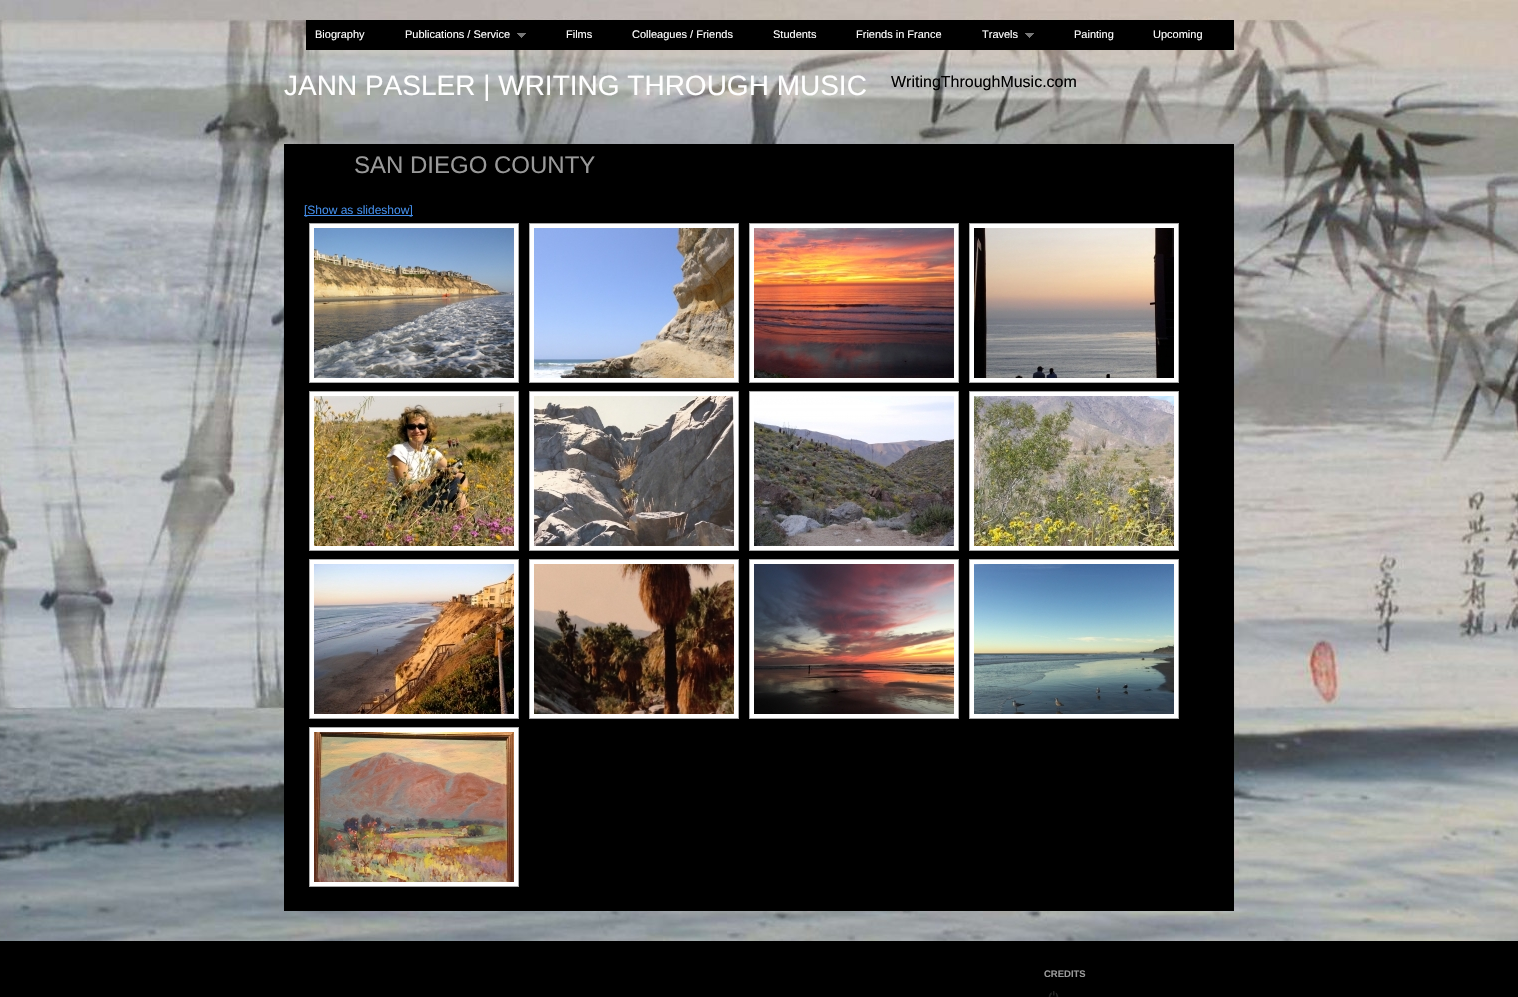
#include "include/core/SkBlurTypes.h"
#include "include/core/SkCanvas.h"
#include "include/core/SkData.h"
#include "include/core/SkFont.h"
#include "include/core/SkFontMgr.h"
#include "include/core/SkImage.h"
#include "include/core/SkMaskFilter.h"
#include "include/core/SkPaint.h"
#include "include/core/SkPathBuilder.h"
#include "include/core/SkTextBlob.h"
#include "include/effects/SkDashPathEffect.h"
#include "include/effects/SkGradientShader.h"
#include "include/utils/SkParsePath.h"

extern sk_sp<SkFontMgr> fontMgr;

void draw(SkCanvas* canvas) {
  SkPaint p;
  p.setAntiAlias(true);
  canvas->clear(SK_ColorWHITE);
  canvas->drawImageRect(SkImages::DeferredFromEncodedData(SkData::MakeFromFileName("images/1.png")), SkRect::MakeLTRB(0, 0, 1518, 941), SkSamplingOptions());
  p.setColor(SK_ColorBLACK);
  canvas->drawRect(SkRect::MakeLTRB(306, 20, 1234, 50), p);
  canvas->drawImageRect(SkImages::DeferredFromEncodedData(SkData::MakeFromFileName("images/2.png")), SkRect::MakeLTRB(517, 33, 526, 38), SkSamplingOptions());
  canvas->drawImageRect(SkImages::DeferredFromEncodedData(SkData::MakeFromFileName("images/2.png")), SkRect::MakeLTRB(1025, 33, 1034, 38), SkSamplingOptions());
  canvas->drawRect(SkRect::MakeLTRB(284, 144, 1234, 911), p);
  p.setColor(SkColorSetRGB(66, 140, 231));
  canvas->drawRect(SkRect::MakeLTRB(304, 215, 413, 216), p);
  p.setColor(SK_ColorWHITE);
  canvas->drawRect(SkRect::MakeLTRB(309.5f, 223.5f, 518.5f, 382.5f), p);
  p.setStyle(SkPaint::kStroke_Style);
  p.setStrokeWidth(1);
  p.setColor(SkColorSetRGB(169, 169, 169));
  canvas->drawRect(SkRect::MakeLTRB(309.5f, 223.5f, 518.5f, 382.5f), p);
  canvas->drawImageRect(SkImages::DeferredFromEncodedData(SkData::MakeFromFileName("images/3.png")), SkRect::MakeLTRB(314, 228, 514, 378), SkSamplingOptions());
  p.setStyle(SkPaint::kFill_Style);
  p.setColor(SK_ColorWHITE);
  canvas->drawRect(SkRect::MakeLTRB(529.5f, 223.5f, 738.5f, 382.5f), p);
  p.setStyle(SkPaint::kStroke_Style);
  p.setColor(SkColorSetRGB(169, 169, 169));
  canvas->drawRect(SkRect::MakeLTRB(529.5f, 223.5f, 738.5f, 382.5f), p);
  canvas->drawImageRect(SkImages::DeferredFromEncodedData(SkData::MakeFromFileName("images/4.png")), SkRect::MakeLTRB(534, 228, 734, 378), SkSamplingOptions());
  p.setStyle(SkPaint::kFill_Style);
  p.setColor(SK_ColorWHITE);
  canvas->drawRect(SkRect::MakeLTRB(749.5f, 223.5f, 958.5f, 382.5f), p);
  p.setStyle(SkPaint::kStroke_Style);
  p.setColor(SkColorSetRGB(169, 169, 169));
  canvas->drawRect(SkRect::MakeLTRB(749.5f, 223.5f, 958.5f, 382.5f), p);
  canvas->drawImageRect(SkImages::DeferredFromEncodedData(SkData::MakeFromFileName("images/5.png")), SkRect::MakeLTRB(754, 228, 954, 378), SkSamplingOptions());
  p.setStyle(SkPaint::kFill_Style);
  p.setColor(SK_ColorWHITE);
  canvas->drawRect(SkRect::MakeLTRB(969.5f, 223.5f, 1178.5f, 382.5f), p);
  p.setStyle(SkPaint::kStroke_Style);
  p.setColor(SkColorSetRGB(169, 169, 169));
  canvas->drawRect(SkRect::MakeLTRB(969.5f, 223.5f, 1178.5f, 382.5f), p);
  canvas->drawImageRect(SkImages::DeferredFromEncodedData(SkData::MakeFromFileName("images/6.png")), SkRect::MakeLTRB(974, 228, 1174, 378), SkSamplingOptions());
  p.setStyle(SkPaint::kFill_Style);
  p.setColor(SK_ColorWHITE);
  canvas->drawRect(SkRect::MakeLTRB(309.5f, 391.5f, 518.5f, 550.5f), p);
  p.setStyle(SkPaint::kStroke_Style);
  p.setColor(SkColorSetRGB(169, 169, 169));
  canvas->drawRect(SkRect::MakeLTRB(309.5f, 391.5f, 518.5f, 550.5f), p);
  canvas->drawImageRect(SkImages::DeferredFromEncodedData(SkData::MakeFromFileName("images/7.png")), SkRect::MakeLTRB(314, 396, 514, 546), SkSamplingOptions());
  p.setStyle(SkPaint::kFill_Style);
  p.setColor(SK_ColorWHITE);
  canvas->drawRect(SkRect::MakeLTRB(529.5f, 391.5f, 738.5f, 550.5f), p);
  p.setStyle(SkPaint::kStroke_Style);
  p.setColor(SkColorSetRGB(169, 169, 169));
  canvas->drawRect(SkRect::MakeLTRB(529.5f, 391.5f, 738.5f, 550.5f), p);
  canvas->drawImageRect(SkImages::DeferredFromEncodedData(SkData::MakeFromFileName("images/8.png")), SkRect::MakeLTRB(534, 396, 734, 546), SkSamplingOptions());
  p.setStyle(SkPaint::kFill_Style);
  p.setColor(SK_ColorWHITE);
  canvas->drawRect(SkRect::MakeLTRB(749.5f, 391.5f, 958.5f, 550.5f), p);
  p.setStyle(SkPaint::kStroke_Style);
  p.setColor(SkColorSetRGB(169, 169, 169));
  canvas->drawRect(SkRect::MakeLTRB(749.5f, 391.5f, 958.5f, 550.5f), p);
  canvas->drawImageRect(SkImages::DeferredFromEncodedData(SkData::MakeFromFileName("images/9.png")), SkRect::MakeLTRB(754, 396, 954, 546), SkSamplingOptions());
  p.setStyle(SkPaint::kFill_Style);
  p.setColor(SK_ColorWHITE);
  canvas->drawRect(SkRect::MakeLTRB(969.5f, 391.5f, 1178.5f, 550.5f), p);
  p.setStyle(SkPaint::kStroke_Style);
  p.setColor(SkColorSetRGB(169, 169, 169));
  canvas->drawRect(SkRect::MakeLTRB(969.5f, 391.5f, 1178.5f, 550.5f), p);
  canvas->drawImageRect(SkImages::DeferredFromEncodedData(SkData::MakeFromFileName("images/10.png")), SkRect::MakeLTRB(974, 396, 1174, 546), SkSamplingOptions());
  p.setStyle(SkPaint::kFill_Style);
  p.setColor(SK_ColorWHITE);
  canvas->drawRect(SkRect::MakeLTRB(309.5f, 559.5f, 518.5f, 718.5f), p);
  p.setStyle(SkPaint::kStroke_Style);
  p.setColor(SkColorSetRGB(169, 169, 169));
  canvas->drawRect(SkRect::MakeLTRB(309.5f, 559.5f, 518.5f, 718.5f), p);
  canvas->drawImageRect(SkImages::DeferredFromEncodedData(SkData::MakeFromFileName("images/11.png")), SkRect::MakeLTRB(314, 564, 514, 714), SkSamplingOptions());
  p.setStyle(SkPaint::kFill_Style);
  p.setColor(SK_ColorWHITE);
  canvas->drawRect(SkRect::MakeLTRB(529.5f, 559.5f, 738.5f, 718.5f), p);
  p.setStyle(SkPaint::kStroke_Style);
  p.setColor(SkColorSetRGB(169, 169, 169));
  canvas->drawRect(SkRect::MakeLTRB(529.5f, 559.5f, 738.5f, 718.5f), p);
  canvas->drawImageRect(SkImages::DeferredFromEncodedData(SkData::MakeFromFileName("images/12.png")), SkRect::MakeLTRB(534, 564, 734, 714), SkSamplingOptions());
  p.setStyle(SkPaint::kFill_Style);
  p.setColor(SK_ColorWHITE);
  canvas->drawRect(SkRect::MakeLTRB(749.5f, 559.5f, 958.5f, 718.5f), p);
  p.setStyle(SkPaint::kStroke_Style);
  p.setColor(SkColorSetRGB(169, 169, 169));
  canvas->drawRect(SkRect::MakeLTRB(749.5f, 559.5f, 958.5f, 718.5f), p);
  canvas->drawImageRect(SkImages::DeferredFromEncodedData(SkData::MakeFromFileName("images/13.png")), SkRect::MakeLTRB(754, 564, 954, 714), SkSamplingOptions());
  p.setStyle(SkPaint::kFill_Style);
  p.setColor(SK_ColorWHITE);
  canvas->drawRect(SkRect::MakeLTRB(969.5f, 559.5f, 1178.5f, 718.5f), p);
  p.setStyle(SkPaint::kStroke_Style);
  p.setColor(SkColorSetRGB(169, 169, 169));
  canvas->drawRect(SkRect::MakeLTRB(969.5f, 559.5f, 1178.5f, 718.5f), p);
  canvas->drawImageRect(SkImages::DeferredFromEncodedData(SkData::MakeFromFileName("images/14.png")), SkRect::MakeLTRB(974, 564, 1174, 714), SkSamplingOptions());
  p.setStyle(SkPaint::kFill_Style);
  p.setColor(SK_ColorWHITE);
  canvas->drawRect(SkRect::MakeLTRB(309.5f, 727.5f, 518.5f, 886.5f), p);
  p.setStyle(SkPaint::kStroke_Style);
  p.setColor(SkColorSetRGB(169, 169, 169));
  canvas->drawRect(SkRect::MakeLTRB(309.5f, 727.5f, 518.5f, 886.5f), p);
  canvas->drawImageRect(SkImages::DeferredFromEncodedData(SkData::MakeFromFileName("images/15.png")), SkRect::MakeLTRB(314, 732, 514, 882), SkSamplingOptions());
  p.setStyle(SkPaint::kFill_Style);
  p.setColor(SK_ColorBLACK);
  canvas->drawRect(SkRect::MakeLTRB(0, 941, 1518, 997), p);
  canvas->drawImageRect(SkImages::DeferredFromEncodedData(SkData::MakeFromFileName("images/16.png")), SkRect::MakeLTRB(1048, 991, 1059, 997), SkSamplingOptions());
  SkFont font1(fontMgr->matchFamilyStyle("Liberation Sans", SkFontStyle::Normal()), 11);
  font1.setSubpixel(true);
  p.setColor(SK_ColorWHITE);
  canvas->drawString("Biography", 315, 38, font1, p);
  canvas->drawString("Publications / Service", 405, 38, font1, p);
  canvas->drawString("Films", 566, 38, font1, p);
  canvas->drawString("Colleagues / Friends", 632, 38, font1, p);
  canvas->drawString("Students", 773, 38, font1, p);
  canvas->drawString("Friends in France", 856, 38, font1, p);
  canvas->drawString("Travels", 982, 38, font1, p);
  canvas->drawString("Painting", 1074, 38, font1, p);
  canvas->drawString("Upcoming", 1153, 38, font1, p);
  SkFont font2(fontMgr->matchFamilyStyle("Liberation Sans", SkFontStyle::Normal()), 28);
  font2.setSubpixel(true);
  canvas->drawString("JANN PASLER | WRITING THROUGH MUSIC", 284, 95, font2, p);
  SkFont font3(fontMgr->matchFamilyStyle("Liberation Sans", SkFontStyle::Normal()), 16);
  font3.setSubpixel(true);
  p.setColor(SK_ColorBLACK);
  canvas->drawString("WritingThroughMusic.com", 891, 87, font3, p);
  SkFont font4(fontMgr->matchFamilyStyle("Liberation Sans", SkFontStyle::Normal()), 24);
  font4.setSubpixel(true);
  p.setColor(SkColorSetRGB(153, 153, 153));
  canvas->drawString("SAN DIEGO COUNTY", 354, 173, font4, p);
  SkFont font5(fontMgr->matchFamilyStyle("Liberation Sans", SkFontStyle::Normal()), 12);
  font5.setSubpixel(true);
  p.setColor(SkColorSetRGB(66, 140, 231));
  canvas->drawString("[Show as slideshow]", 304, 214, font5, p);
  SkFont font6(fontMgr->matchFamilyStyle("Liberation Sans", SkFontStyle::Bold()), 9.5f);
  font6.setSubpixel(true);
  p.setColor(SkColorSetRGB(153, 153, 153));
  canvas->drawString("CREDITS", 1044, 977, font6, p);
}
